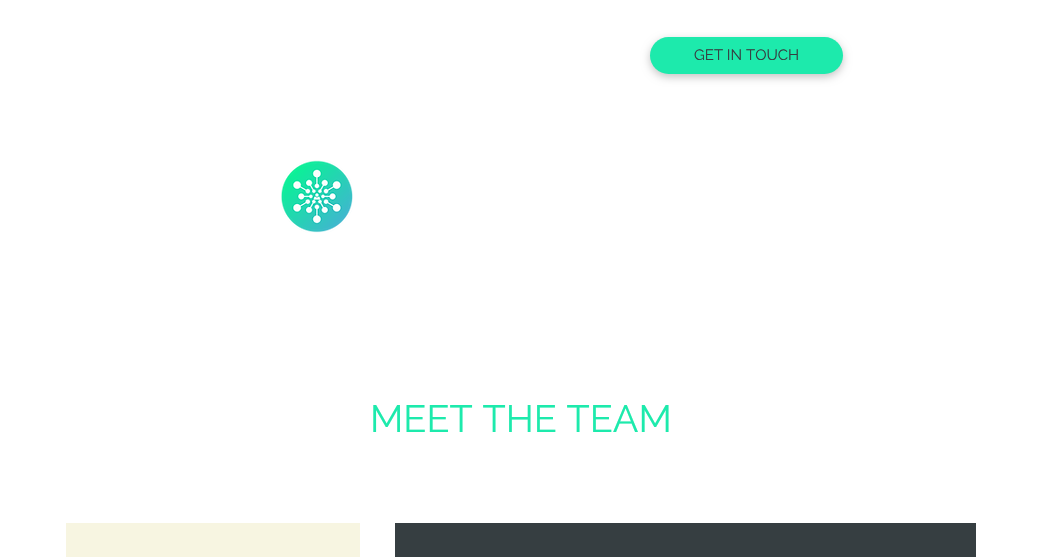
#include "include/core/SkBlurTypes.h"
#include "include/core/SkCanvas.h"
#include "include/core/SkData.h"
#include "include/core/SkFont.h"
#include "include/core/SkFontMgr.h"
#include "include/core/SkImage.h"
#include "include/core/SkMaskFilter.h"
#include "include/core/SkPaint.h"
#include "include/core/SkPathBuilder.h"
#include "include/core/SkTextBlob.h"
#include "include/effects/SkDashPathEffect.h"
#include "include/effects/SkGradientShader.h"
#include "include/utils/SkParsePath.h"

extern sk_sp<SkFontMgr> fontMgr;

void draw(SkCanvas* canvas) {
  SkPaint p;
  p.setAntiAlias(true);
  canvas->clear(SK_ColorWHITE);
  p.setColor(SkColorSetARGB(59, 0, 0, 0));
  p.setMaskFilter(SkMaskFilter::MakeBlur(kNormal_SkBlurStyle, 4.5f));
  canvas->drawRoundRect(SkRect::MakeLTRB(650, 40, 843, 77), 18.5f, 18.5f, p);
  p.setMaskFilter(nullptr);
  p.setColor(SkColorSetRGB(29, 234, 172));
  canvas->drawRoundRect(SkRect::MakeLTRB(650, 37, 843, 74), 18.5f, 18.5f, p);
  canvas->drawImageRect(SkImages::DeferredFromEncodedData(SkData::MakeFromFileName("images/1.png")), SkRect::MakeLTRB(281, 160, 353, 233), SkSamplingOptions());
  p.setColor(SkColorSetRGB(247, 245, 225));
  canvas->drawRect(SkRect::MakeLTRB(66, 523, 360, 557), p);
  p.setColor(SkColorSetRGB(54, 62, 65));
  canvas->drawRect(SkRect::MakeLTRB(395, 523, 976, 557), p);
  SkFont font1(fontMgr->matchFamilyStyle("Raleway", SkFontStyle::Normal()), 15);
  font1.setSubpixel(true);
  canvas->drawString("GET IN TOUCH", 694, 60, font1, p);
  SkFont font2(fontMgr->matchFamilyStyle("Raleway", SkFontStyle::Normal()), 38);
  font2.setSubpixel(true);
  p.setColor(SkColorSetRGB(29, 234, 172));
  canvas->drawString("MEET THE TEAM", 370, 432, font2, p);
}
